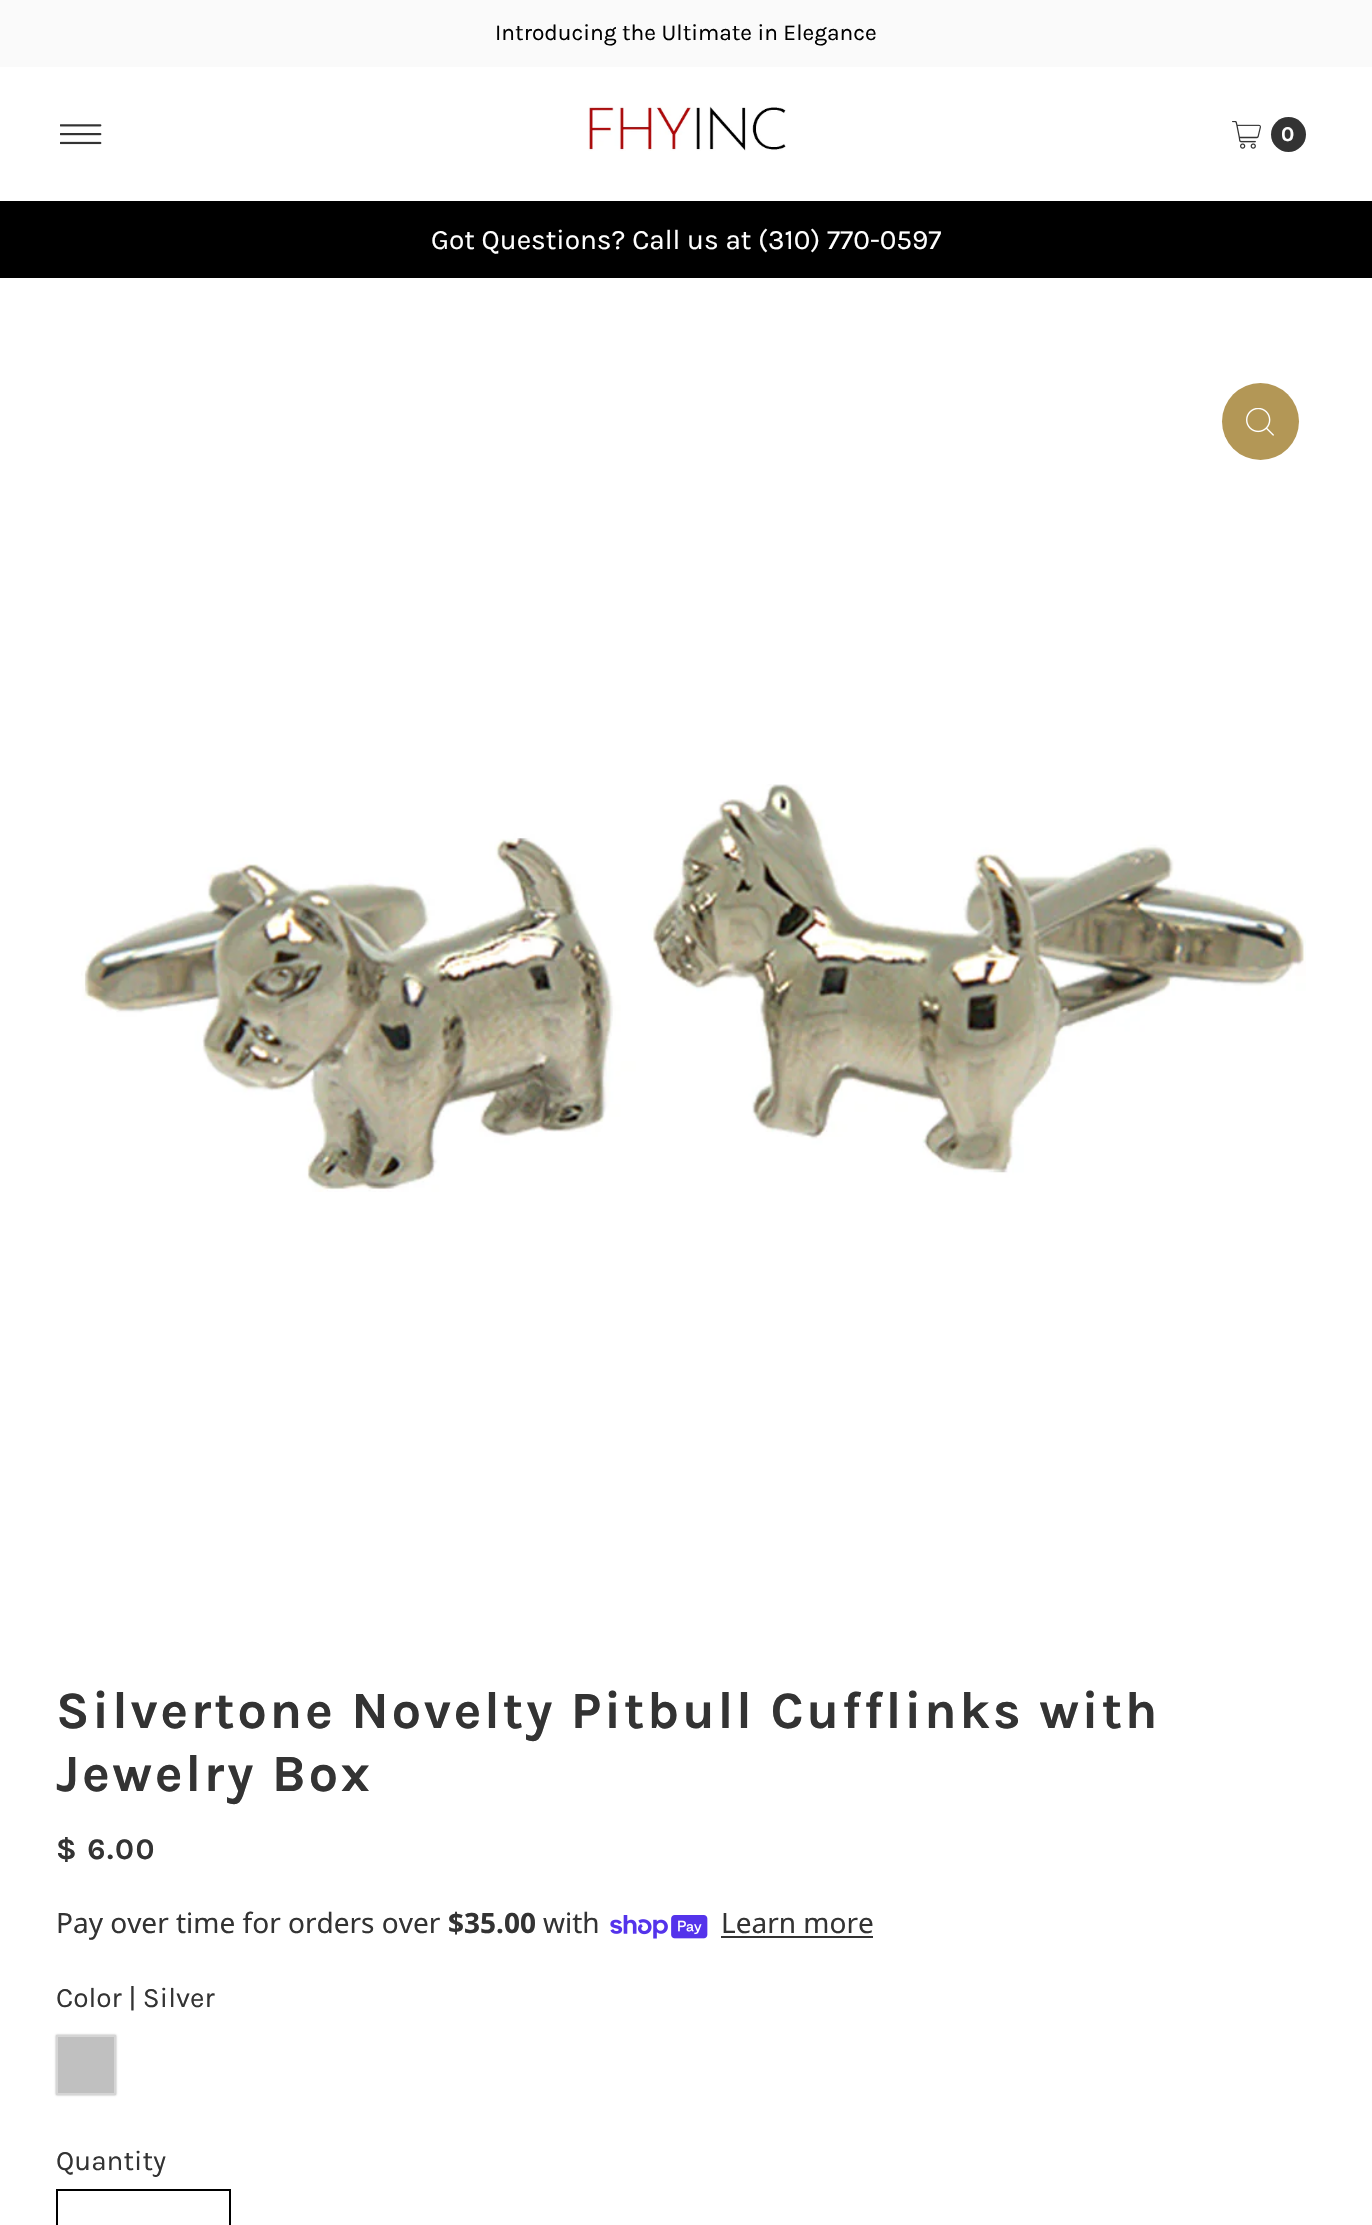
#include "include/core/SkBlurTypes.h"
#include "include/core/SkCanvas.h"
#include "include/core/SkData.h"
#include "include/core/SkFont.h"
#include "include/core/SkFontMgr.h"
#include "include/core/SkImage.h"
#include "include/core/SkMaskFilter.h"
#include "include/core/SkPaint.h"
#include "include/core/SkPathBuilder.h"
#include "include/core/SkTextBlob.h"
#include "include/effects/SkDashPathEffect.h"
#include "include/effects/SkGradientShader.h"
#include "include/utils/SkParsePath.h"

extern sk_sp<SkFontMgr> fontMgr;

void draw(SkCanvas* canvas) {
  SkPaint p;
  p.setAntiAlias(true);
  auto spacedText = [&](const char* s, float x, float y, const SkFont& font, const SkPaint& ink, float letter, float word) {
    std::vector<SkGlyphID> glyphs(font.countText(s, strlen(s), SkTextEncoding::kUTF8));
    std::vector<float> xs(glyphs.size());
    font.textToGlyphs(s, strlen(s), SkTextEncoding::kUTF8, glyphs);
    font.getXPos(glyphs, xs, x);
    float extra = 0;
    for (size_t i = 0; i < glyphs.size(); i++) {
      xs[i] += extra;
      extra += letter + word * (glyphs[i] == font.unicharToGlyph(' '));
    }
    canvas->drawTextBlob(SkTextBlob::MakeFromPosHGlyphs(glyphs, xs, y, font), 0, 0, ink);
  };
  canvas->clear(SK_ColorWHITE);
  p.setColor(SkColorSetRGB(250, 250, 250));
  canvas->drawRect(SkRect::MakeLTRB(0, 0, 1372, 67), p);
  canvas->drawImageRect(SkImages::DeferredFromEncodedData(SkData::MakeFromFileName("images/1.png")), SkRect::MakeLTRB(60, 124, 102, 145), SkSamplingOptions());
  canvas->drawImageRect(SkImages::DeferredFromEncodedData(SkData::MakeFromFileName("images/2.png")), SkRect::MakeLTRB(588, 106, 786, 151), SkSamplingOptions());
  canvas->drawImageRect(SkImages::DeferredFromEncodedData(SkData::MakeFromFileName("images/3.png")), SkRect::MakeLTRB(1232, 121, 1261, 149), SkSamplingOptions());
  p.setColor(SkColorSetRGB(51, 51, 51));
  canvas->drawCircle(1288.5f, 134.5f, 17.5f, p);
  p.setColor(SK_ColorBLACK);
  canvas->drawRect(SkRect::MakeLTRB(0, 201, 1372, 278), p);
  p.setColor(SkColorSetRGB(179, 151, 86));
  canvas->drawCircle(1260.5f, 421.5f, 38.5f, p);
  canvas->drawImageRect(SkImages::DeferredFromEncodedData(SkData::MakeFromFileName("images/4.png")), SkRect::MakeLTRB(1246, 408, 1274, 436), SkSamplingOptions());
  canvas->drawImageRect(SkImages::DeferredFromEncodedData(SkData::MakeFromFileName("images/5.png")), SkRect::MakeLTRB(81, 784, 1306, 1192), SkSamplingOptions());
  canvas->drawImageRect(SkImages::DeferredFromEncodedData(SkData::MakeFromFileName("images/6.png")), SkRect::MakeLTRB(610, 1915, 708, 1939), SkSamplingOptions());
  p.setColor(SkColorSetRGB(51, 51, 51));
  canvas->drawRect(SkRect::MakeLTRB(721, 1936, 873, 1938), p);
  p.setColor(SkColorSetRGB(170, 170, 170));
  p.setMaskFilter(SkMaskFilter::MakeBlur(kNormal_SkBlurStyle, 1));
  canvas->drawRect(SkRect::MakeLTRB(56, 2035, 116, 2095), p);
  p.setMaskFilter(nullptr);
  p.setColor(SkColorSetRGB(192, 192, 192));
  canvas->drawRect(SkRect::MakeLTRB(57, 2036, 115, 2094), p);
  p.setStyle(SkPaint::kStroke_Style);
  p.setStrokeWidth(2);
  p.setColor(SkColorSetRGB(213, 213, 213));
  canvas->drawRect(SkRect::MakeLTRB(57, 2036, 115, 2094), p);
  p.setColor(SK_ColorBLACK);
  canvas->drawRect(SkRect::MakeLTRB(57, 2190, 230, 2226), p);
  SkFont font1(fontMgr->matchFamilyStyle("Karla", SkFontStyle::Normal()), 22.75f);
  font1.setSubpixel(true);
  p.setStyle(SkPaint::kFill_Style);
  canvas->drawString("Introducing the Ultimate in Elegance", 495, 40, font1, p);
  SkFont font2(fontMgr->matchFamilyStyle("Karla", SkFontStyle::Bold()), 21);
  font2.setSubpixel(true);
  p.setColor(SK_ColorWHITE);
  canvas->drawString("0", 1281, 141, font2, p);
  SkFont font3(fontMgr->matchFamilyStyle("Karla", SkFontStyle::Normal()), 28);
  font3.setSubpixel(true);
  canvas->drawString("Got Questions? Call us at (310) 770-0597", 431, 249, font3, p);
  SkFont font4(fontMgr->matchFamilyStyle("Karla", SkFontStyle::Bold()), 52.5f);
  font4.setSubpixel(true);
  p.setColor(SkColorSetRGB(51, 51, 51));
  spacedText("Silvertone Novelty Pitbull Cufflinks with", 56, 1728, font4, p, 2.6f, 0);
  spacedText("Jewelry Box", 56, 1791, font4, p, 2.6f, 0);
  SkFont font5(fontMgr->matchFamilyStyle("Karla", SkFontStyle::Bold()), 30);
  font5.setSubpixel(true);
  spacedText("$ 6.00", 56, 1859, font5, p, 1.5f, 0);
  SkFont font6(fontMgr->matchFamilyStyle("Noto Sans", SkFontStyle::Normal()), 28);
  font6.setSubpixel(true);
  canvas->drawString("Pay over time for orders over", 56, 1933, font6, p);
  SkFont font7(fontMgr->matchFamilyStyle("Noto Sans", SkFontStyle::Bold()), 28);
  font7.setSubpixel(true);
  canvas->drawString("$35.00", 448, 1933, font7, p);
  canvas->drawString("with", 543, 1933, font6, p);
  canvas->drawString("Learn more", 721, 1933, font6, p);
  canvas->drawString("Color | Silver", 56, 2007, font3, p);
  canvas->drawString("Quantity", 56, 2170, font3, p);
}
